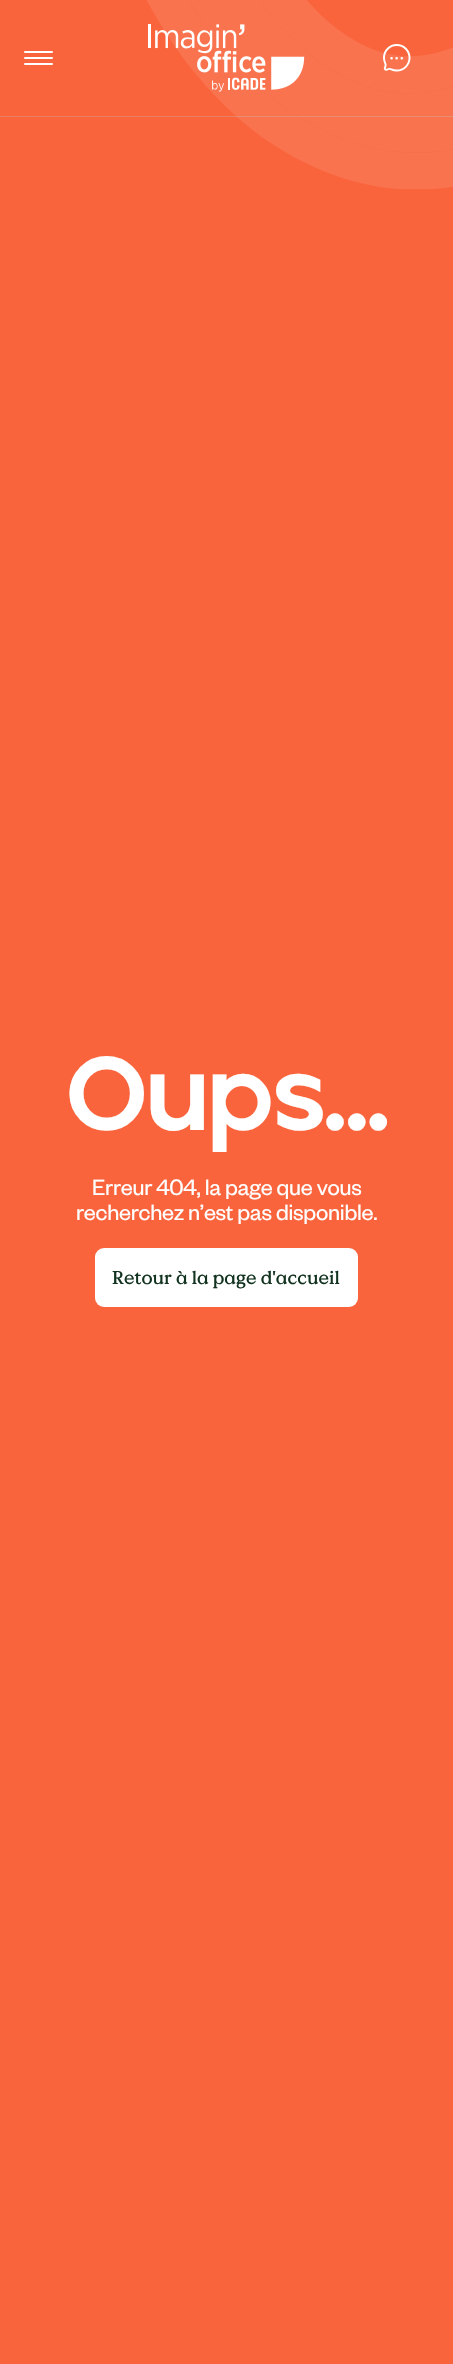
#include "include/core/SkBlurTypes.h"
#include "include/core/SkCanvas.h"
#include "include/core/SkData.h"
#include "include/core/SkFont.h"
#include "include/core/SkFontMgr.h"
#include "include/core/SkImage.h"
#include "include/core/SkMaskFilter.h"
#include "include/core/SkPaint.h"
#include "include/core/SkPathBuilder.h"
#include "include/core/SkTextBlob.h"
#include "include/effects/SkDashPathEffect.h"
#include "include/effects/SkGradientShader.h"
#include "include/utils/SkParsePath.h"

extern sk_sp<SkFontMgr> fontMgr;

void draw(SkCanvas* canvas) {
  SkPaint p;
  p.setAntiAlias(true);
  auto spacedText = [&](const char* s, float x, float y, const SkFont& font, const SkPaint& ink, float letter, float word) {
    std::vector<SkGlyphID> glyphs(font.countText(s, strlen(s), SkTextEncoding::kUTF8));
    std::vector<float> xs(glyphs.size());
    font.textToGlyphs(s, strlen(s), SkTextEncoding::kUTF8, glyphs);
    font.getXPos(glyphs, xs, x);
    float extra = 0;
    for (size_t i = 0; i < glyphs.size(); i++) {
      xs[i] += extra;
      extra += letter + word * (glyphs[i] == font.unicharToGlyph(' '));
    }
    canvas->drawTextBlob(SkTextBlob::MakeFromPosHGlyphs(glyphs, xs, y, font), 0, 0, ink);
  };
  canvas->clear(SkColorSetRGB(250, 100, 60));
  canvas->drawImageRect(SkImages::DeferredFromEncodedData(SkData::MakeFromFileName("images/3.png")), SkRect::MakeLTRB(147, 0, 453, 189), SkSamplingOptions());
  p.setColor(SkColorSetARGB(77, 192, 197, 193));
  canvas->drawRect(SkRect::MakeLTRB(0, 116, 453, 117), p);
  p.setColor(SK_ColorWHITE);
  canvas->drawRoundRect(SkRect::MakeLTRB(24, 51, 53, 53), 1, 1, p);
  canvas->drawRoundRect(SkRect::MakeLTRB(24, 57, 53, 59), 1, 1, p);
  canvas->drawRoundRect(SkRect::MakeLTRB(24, 63, 53, 65), 1, 1, p);
  canvas->drawImageRect(SkImages::DeferredFromEncodedData(SkData::MakeFromFileName("images/1.png")), SkRect::MakeLTRB(148, 24, 305, 92), SkSamplingOptions());
  canvas->drawImageRect(SkImages::DeferredFromEncodedData(SkData::MakeFromFileName("images/2.png")), SkRect::MakeLTRB(383, 44, 411, 72), SkSamplingOptions());
  canvas->drawRoundRect(SkRect::MakeLTRB(95, 1248, 358, 1307), 9, 9, p);
  SkFont font1(fontMgr->matchFamilyStyle("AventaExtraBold", SkFontStyle(800, SkFontStyle::kNormal_Width, SkFontStyle::kUpright_Slant)), 104.5f);
  font1.setSubpixel(true);
  spacedText("Oups...", 66, 1130, font1, p, -2, 0);
  SkFont font2(fontMgr->matchFamilyStyle("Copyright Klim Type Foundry", SkFontStyle::Normal()), 24.4f);
  font2.setSubpixel(true);
  spacedText("Erreur 404, la page que vous", 92, 1195, font2, p, -0.25f, 0);
  spacedText("recherchez n’est pas disponible.", 76, 1220, font2, p, -0.25f, 0);
  SkFont font3(fontMgr->matchFamilyStyle("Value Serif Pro", SkFontStyle(500, SkFontStyle::kNormal_Width, SkFontStyle::kUpright_Slant)), 18.5f);
  font3.setSubpixel(true);
  p.setColor(SkColorSetRGB(18, 51, 32));
  canvas->drawString("Retour à la page d'accueil", 112, 1284, font3, p);
}
